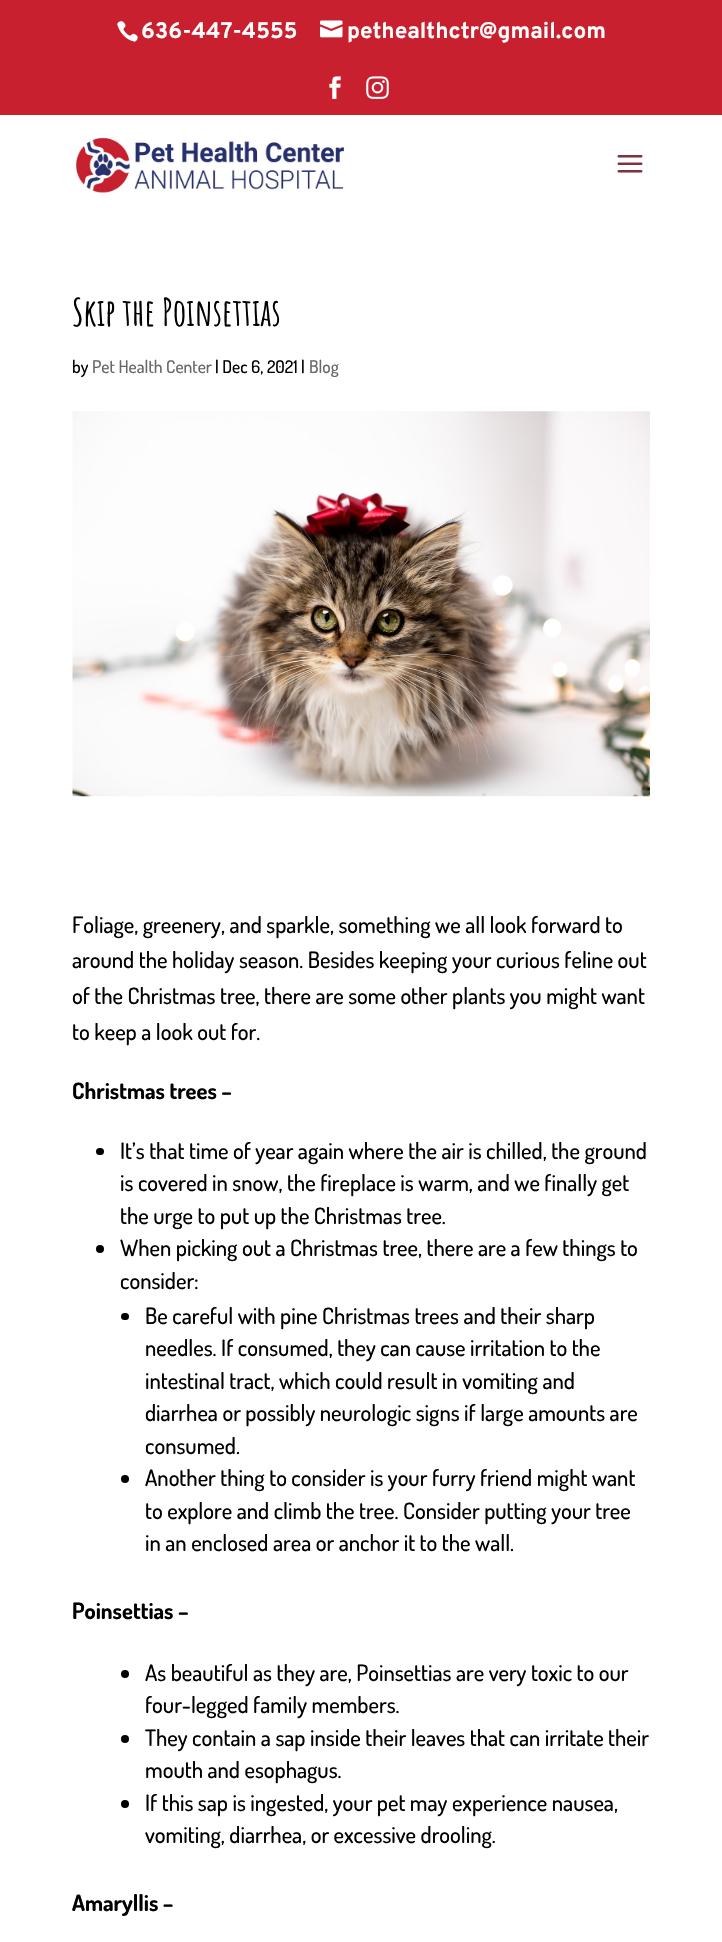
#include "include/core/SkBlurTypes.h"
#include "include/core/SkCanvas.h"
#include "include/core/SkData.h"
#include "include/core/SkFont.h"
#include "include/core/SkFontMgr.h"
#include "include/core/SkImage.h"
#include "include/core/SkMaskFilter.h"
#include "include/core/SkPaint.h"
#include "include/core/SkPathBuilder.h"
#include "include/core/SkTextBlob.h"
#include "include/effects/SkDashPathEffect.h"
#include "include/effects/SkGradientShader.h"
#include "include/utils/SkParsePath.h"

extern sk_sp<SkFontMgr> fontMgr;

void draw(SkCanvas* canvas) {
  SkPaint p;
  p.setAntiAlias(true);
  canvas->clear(SK_ColorWHITE);
  p.setColor(SkColorSetRGB(200, 32, 47));
  canvas->drawRect(SkRect::MakeLTRB(0, 0, 722, 115), p);
  canvas->drawImageRect(SkImages::DeferredFromEncodedData(SkData::MakeFromFileName("images/1.png")), SkRect::MakeLTRB(117, 21, 138, 42), SkSamplingOptions());
  canvas->drawImageRect(SkImages::DeferredFromEncodedData(SkData::MakeFromFileName("images/2.png")), SkRect::MakeLTRB(320, 20, 343, 38), SkSamplingOptions());
  canvas->drawImageRect(SkImages::DeferredFromEncodedData(SkData::MakeFromFileName("images/3.png")), SkRect::MakeLTRB(329, 76, 341, 99), SkSamplingOptions());
  canvas->drawImageRect(SkImages::DeferredFromEncodedData(SkData::MakeFromFileName("images/4.png")), SkRect::MakeLTRB(366, 76, 389, 99), SkSamplingOptions());
  canvas->drawImageRect(SkImages::DeferredFromEncodedData(SkData::MakeFromFileName("images/5.png")), SkRect::MakeLTRB(76, 137, 345, 193), SkSamplingOptions());
  canvas->drawImageRect(SkImages::DeferredFromEncodedData(SkData::MakeFromFileName("images/6.png")), SkRect::MakeLTRB(617, 155, 643, 173), SkSamplingOptions());
  canvas->drawImageRect(SkImages::DeferredFromEncodedData(SkData::MakeFromFileName("images/7.png")), SkRect::MakeLTRB(72, 411, 650, 797), SkSamplingOptions());
  p.setColor(SK_ColorBLACK);
  canvas->drawRoundRect(SkRect::MakeLTRB(96, 1148, 104, 1155), 3.5f, 3.5f, p);
  canvas->drawCircle(100, 1249, 4, p);
  canvas->drawRoundRect(SkRect::MakeLTRB(121, 1313, 129, 1320), 3.5f, 3.5f, p);
  canvas->drawCircle(125, 1479, 4, p);
  canvas->drawCircle(125, 1674, 4, p);
  canvas->drawCircle(125, 1739, 4, p);
  canvas->drawCircle(125, 1804, 4, p);
  SkFont font1(fontMgr->matchFamilyStyle("Overpass", SkFontStyle::Bold()), 22.5f);
  font1.setSubpixel(true);
  p.setColor(SK_ColorWHITE);
  canvas->drawString("636-447-4555", 141, 38, font1, p);
  canvas->drawString("pethealthctr@gmail.com", 347, 38, font1, p);
  SkFont font2(fontMgr->matchFamilyStyle("Amatic SC", SkFontStyle::Bold()), 37.5f);
  font2.setSubpixel(true);
  p.setColor(SK_ColorBLACK);
  canvas->drawString("Skip the Poinsettias", 72, 326, font2, p);
  SkFont font3(fontMgr->matchFamilyStyle("Dosis", SkFontStyle(500, SkFontStyle::kNormal_Width, SkFontStyle::kUpright_Slant)), 17.5f);
  font3.setSubpixel(true);
  canvas->drawString("by", 72, 373, font3, p);
  p.setColor(SkColorSetRGB(102, 102, 102));
  canvas->drawString("Pet Health Center", 92, 373, font3, p);
  p.setColor(SK_ColorBLACK);
  canvas->drawString("| Dec 6, 2021 |", 215, 373, font3, p);
  p.setColor(SkColorSetRGB(102, 102, 102));
  canvas->drawString("Blog", 309, 373, font3, p);
  SkFont font4(fontMgr->matchFamilyStyle("Dosis", SkFontStyle(500, SkFontStyle::kNormal_Width, SkFontStyle::kUpright_Slant)), 22.5f);
  font4.setSubpixel(true);
  p.setColor(SK_ColorBLACK);
  canvas->drawString("Foliage, greenery, and sparkle, something we all look forward to", 72, 933, font4, p);
  canvas->drawString("around the holiday season. Besides keeping your curious feline out", 72, 968, font4, p);
  canvas->drawString("of the Christmas tree, there are some other plants you might want", 72, 1004, font4, p);
  canvas->drawString("to keep a look out for.", 72, 1040, font4, p);
  SkFont font5(fontMgr->matchFamilyStyle("Dosis", SkFontStyle::Bold()), 22.5f);
  font5.setSubpixel(true);
  canvas->drawString("Christmas trees –", 72, 1099, font5, p);
  canvas->drawString("It’s that time of year again where the air is chilled, the ground", 120, 1159, font4, p);
  canvas->drawString("is covered in snow, the fireplace is warm, and we finally get", 120, 1191, font4, p);
  canvas->drawString("the urge to put up the Christmas tree.", 120, 1224, font4, p);
  canvas->drawString("When picking out a Christmas tree, there are a few things to", 120, 1256, font4, p);
  canvas->drawString("consider:", 120, 1289, font4, p);
  canvas->drawString("Be careful with pine Christmas trees and their sharp", 145, 1324, font4, p);
  canvas->drawString("needles. If consumed, they can cause irritation to the", 145, 1356, font4, p);
  canvas->drawString("intestinal tract, which could result in vomiting and", 145, 1389, font4, p);
  canvas->drawString("diarrhea or possibly neurologic signs if large amounts are", 145, 1421, font4, p);
  canvas->drawString("consumed.", 145, 1454, font4, p);
  canvas->drawString("Another thing to consider is your furry friend might want", 145, 1486, font4, p);
  canvas->drawString("to explore and climb the tree. Consider putting your tree", 145, 1519, font4, p);
  canvas->drawString("in an enclosed area or anchor it to the wall.", 145, 1551, font4, p);
  canvas->drawString("Poinsettias –", 72, 1619, font5, p);
  canvas->drawString("As beautiful as they are, Poinsettias are very toxic to our", 145, 1681, font4, p);
  canvas->drawString("four-legged family members.", 145, 1713, font4, p);
  canvas->drawString("They contain a sap inside their leaves that can irritate their", 145, 1746, font4, p);
  canvas->drawString("mouth and esophagus.", 145, 1778, font4, p);
  canvas->drawString("If this sap is ingested, your pet may experience nausea,", 145, 1811, font4, p);
  canvas->drawString("vomiting, diarrhea, or excessive drooling.", 145, 1843, font4, p);
  canvas->drawString("Amaryllis –", 72, 1911, font5, p);
}
